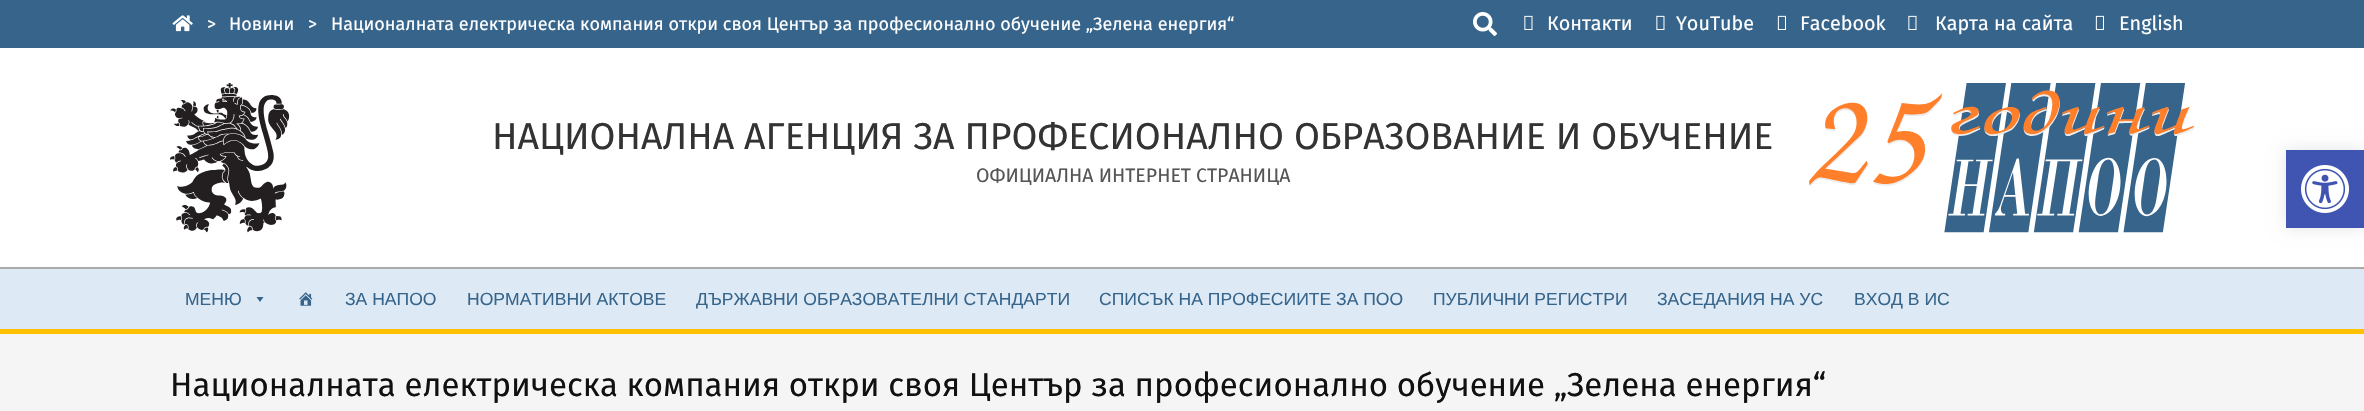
#include "include/core/SkBlurTypes.h"
#include "include/core/SkCanvas.h"
#include "include/core/SkData.h"
#include "include/core/SkFont.h"
#include "include/core/SkFontMgr.h"
#include "include/core/SkImage.h"
#include "include/core/SkMaskFilter.h"
#include "include/core/SkPaint.h"
#include "include/core/SkPathBuilder.h"
#include "include/core/SkTextBlob.h"
#include "include/effects/SkDashPathEffect.h"
#include "include/effects/SkGradientShader.h"
#include "include/utils/SkParsePath.h"

extern sk_sp<SkFontMgr> fontMgr;

void draw(SkCanvas* canvas) {
  SkPaint p;
  p.setAntiAlias(true);
  canvas->clear(SK_ColorWHITE);
  p.setColor(SkColorSetRGB(54, 100, 139));
  canvas->drawRect(SkRect::MakeLTRB(0, 0, 2364, 48), p);
  canvas->drawImageRect(SkImages::DeferredFromEncodedData(SkData::MakeFromFileName("images/1.png")), SkRect::MakeLTRB(172, 15, 193, 32), SkSamplingOptions());
  canvas->drawImageRect(SkImages::DeferredFromEncodedData(SkData::MakeFromFileName("images/2.png")), SkRect::MakeLTRB(1473, 12, 1497, 36), SkSamplingOptions());
  canvas->drawImageRect(SkImages::DeferredFromEncodedData(SkData::MakeFromFileName("images/3.png")), SkRect::MakeLTRB(1524, 15, 1533, 30), SkSamplingOptions());
  canvas->drawImageRect(SkImages::DeferredFromEncodedData(SkData::MakeFromFileName("images/3.png")), SkRect::MakeLTRB(1656, 15, 1665, 30), SkSamplingOptions());
  canvas->drawImageRect(SkImages::DeferredFromEncodedData(SkData::MakeFromFileName("images/4.png")), SkRect::MakeLTRB(1777, 15, 1786, 30), SkSamplingOptions());
  canvas->drawImageRect(SkImages::DeferredFromEncodedData(SkData::MakeFromFileName("images/3.png")), SkRect::MakeLTRB(1908, 15, 1917, 30), SkSamplingOptions());
  canvas->drawImageRect(SkImages::DeferredFromEncodedData(SkData::MakeFromFileName("images/4.png")), SkRect::MakeLTRB(2095, 15, 2104, 30), SkSamplingOptions());
  p.setColor(SkColorSetRGB(170, 170, 170));
  canvas->drawRect(SkRect::MakeLTRB(0, 267, 2364, 269), p);
  canvas->drawImageRect(SkImages::DeferredFromEncodedData(SkData::MakeFromFileName("images/5.png")), SkRect::MakeLTRB(170, 83, 290, 233), SkSamplingOptions());
  canvas->drawImageRect(SkImages::DeferredFromEncodedData(SkData::MakeFromFileName("images/6.png")), SkRect::MakeLTRB(1809, 83, 2195, 233), SkSamplingOptions());
  p.setColor(SkColorSetRGB(221, 234, 246));
  canvas->drawRect(SkRect::MakeLTRB(0, 269, 2364, 329), p);
  p.setColor(SkColorSetRGB(255, 192, 0));
  canvas->drawRect(SkRect::MakeLTRB(0, 329, 2364, 334), p);
  p.setColor(SkColorSetRGB(54, 100, 139));
  canvas->drawPath(SkPathBuilder().moveTo(263.5f, 297).lineTo(260, 302).lineTo(256.5f, 297).close().detach(), p);
  canvas->drawImageRect(SkImages::DeferredFromEncodedData(SkData::MakeFromFileName("images/7.png")), SkRect::MakeLTRB(299, 292, 313, 306), SkSamplingOptions());
  p.setColor(SkColorSetRGB(245, 245, 245));
  canvas->drawRect(SkRect::MakeLTRB(0, 334, 2364, 411), p);
  p.setColor(SkColorSetARGB(26, 0, 0, 0));
  p.setMaskFilter(SkMaskFilter::MakeBlur(kNormal_SkBlurStyle, 7.5f));
  canvas->drawRect(SkRect::MakeLTRB(2286, 150, 2364, 228), p);
  p.setMaskFilter(nullptr);
  p.setColor(SkColorSetRGB(64, 84, 178));
  canvas->drawRect(SkRect::MakeLTRB(2286, 150, 2364, 228), p);
  canvas->drawImageRect(SkImages::DeferredFromEncodedData(SkData::MakeFromFileName("images/8.png")), SkRect::MakeLTRB(2301, 165, 2349, 213), SkSamplingOptions());
  SkFont font1(fontMgr->matchFamilyStyle("Fira Sans", SkFontStyle::Normal()), 18);
  font1.setSubpixel(true);
  p.setColor(SK_ColorWHITE);
  canvas->drawString(">", 207, 30, font1, p);
  canvas->drawString("Новини", 229, 30, font1, p);
  canvas->drawString(">", 308, 30, font1, p);
  canvas->drawString("Националната електрическа компания откри своя Център за професионално обучение „Зелена енергия“", 331, 30, font1, p);
  SkFont font2(fontMgr->matchFamilyStyle("Fira Sans", SkFontStyle::Normal()), 19.75f);
  font2.setSubpixel(true);
  canvas->drawString("Контакти", 1547, 30, font2, p);
  canvas->drawString("YouTube", 1676, 30, font2, p);
  canvas->drawString("Facebook", 1800, 30, font2, p);
  canvas->drawString("Карта на сайта", 1935, 30, font2, p);
  canvas->drawString("English", 2119, 30, font2, p);
  SkFont font3(fontMgr->matchFamilyStyle("Fira Sans", SkFontStyle::Normal()), 37.5f);
  font3.setSubpixel(true);
  p.setColor(SkColorSetRGB(51, 51, 51));
  canvas->drawString("НАЦИОНАЛНА АГЕНЦИЯ ЗА ПРОФЕСИОНАЛНО ОБРАЗОВАНИЕ И ОБУЧЕНИЕ", 492, 149, font3, p);
  SkFont font4(fontMgr->matchFamilyStyle("Fira Sans", SkFontStyle::Normal()), 19.5f);
  font4.setSubpixel(true);
  p.setColor(SkColorSetRGB(85, 85, 85));
  canvas->drawString("ОФИЦИАЛНА ИНТЕРНЕТ СТРАНИЦА", 976, 182, font4, p);
  SkFont font5(fontMgr->matchFamilyStyle("Liberation Sans", SkFontStyle::Normal()), 17.55f);
  font5.setSubpixel(true);
  p.setColor(SkColorSetRGB(54, 100, 139));
  canvas->drawString("МЕНЮ", 185, 305, font5, p);
  canvas->drawString("ЗА НАПОО", 345, 305, font5, p);
  canvas->drawString("НОРМАТИВНИ АКТОВЕ", 467, 305, font5, p);
  canvas->drawString("ДЪРЖАВНИ ОБРАЗОВАТЕЛНИ СТАНДАРТИ", 696, 305, font5, p);
  canvas->drawString("СПИСЪК НА ПРОФЕСИИТЕ ЗА ПОО", 1099, 305, font5, p);
  canvas->drawString("ПУБЛИЧНИ РЕГИСТРИ", 1433, 305, font5, p);
  canvas->drawString("ЗАСЕДАНИЯ НА УС", 1657, 305, font5, p);
  canvas->drawString("ВХОД В ИС", 1854, 305, font5, p);
  SkFont font6(fontMgr->matchFamilyStyle("Fira Sans", SkFontStyle::Normal()), 33);
  font6.setSubpixel(true);
  p.setColor(SkColorSetRGB(17, 17, 17));
  canvas->drawString("Националната електрическа компания откри своя Център за професионално обучение „Зелена енергия“", 170, 396, font6, p);
}
